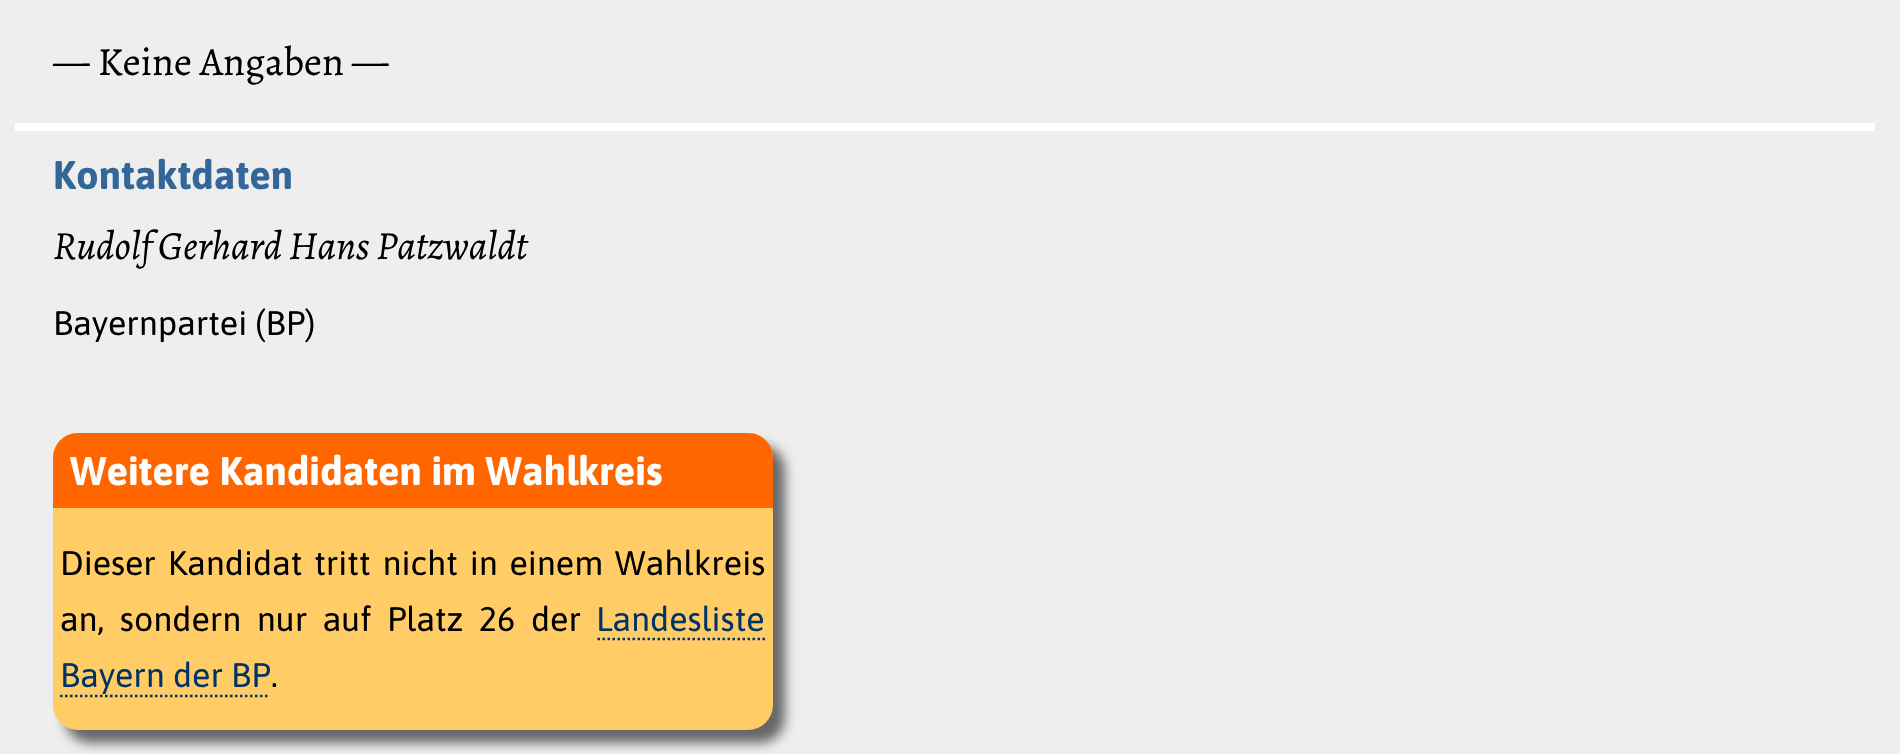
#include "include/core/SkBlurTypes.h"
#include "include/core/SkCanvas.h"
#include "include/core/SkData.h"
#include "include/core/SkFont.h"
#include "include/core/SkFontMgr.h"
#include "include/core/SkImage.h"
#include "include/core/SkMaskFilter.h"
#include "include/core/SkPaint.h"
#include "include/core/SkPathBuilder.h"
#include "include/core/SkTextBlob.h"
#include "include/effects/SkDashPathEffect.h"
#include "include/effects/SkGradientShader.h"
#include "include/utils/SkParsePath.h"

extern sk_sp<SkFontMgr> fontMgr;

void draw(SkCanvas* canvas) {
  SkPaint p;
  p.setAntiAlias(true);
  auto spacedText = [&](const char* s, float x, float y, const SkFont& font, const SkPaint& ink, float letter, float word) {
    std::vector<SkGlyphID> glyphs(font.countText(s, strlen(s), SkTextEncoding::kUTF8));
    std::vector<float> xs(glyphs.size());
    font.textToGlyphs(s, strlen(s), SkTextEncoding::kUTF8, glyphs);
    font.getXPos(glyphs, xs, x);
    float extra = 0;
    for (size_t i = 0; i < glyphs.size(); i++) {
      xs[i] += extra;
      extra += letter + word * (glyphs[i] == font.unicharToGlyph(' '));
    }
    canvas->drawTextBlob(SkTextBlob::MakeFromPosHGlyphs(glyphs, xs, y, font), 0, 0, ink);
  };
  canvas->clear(SkColorSetRGB(238, 238, 238));
  p.setColor(SK_ColorWHITE);
  canvas->drawRect(SkRect::MakeLTRB(15, 123, 1875, 131), p);
  p.setColor(SkColorSetRGB(102, 102, 102));
  p.setMaskFilter(SkMaskFilter::MakeBlur(kNormal_SkBlurStyle, 6));
  canvas->drawRoundRect(SkRect::MakeLTRB(65, 445, 785, 743), 25, 25, p);
  p.setMaskFilter(nullptr);
  p.setColor(SkColorSetRGB(255, 204, 102));
  canvas->drawRoundRect(SkRect::MakeLTRB(53, 433, 773, 730), 25, 25, p);
  p.setColor(SkColorSetRGB(255, 102, 0));
  canvas->drawPath(SkPathBuilder().moveTo(78, 433).lineTo(748, 433).cubicTo(762, 433, 773, 444, 773, 458).lineTo(773, 508).lineTo(53, 508).lineTo(53, 458).cubicTo(53, 444, 64, 433, 78, 433).close().detach(), p);
  p.setStyle(SkPaint::kStroke_Style);
  p.setStrokeWidth(2.5f);
  p.setColor(SkColorSetRGB(0, 51, 102));
  p.setPathEffect(SkDashPathEffect::Make({{2.5f, 2.5f}}, 0));
  canvas->drawPath(SkPathBuilder().moveTo(597.5f, 639).lineTo(765, 639).detach(), p);
  p.setPathEffect(nullptr);
  p.setPathEffect(SkDashPathEffect::Make({{2.5f, 2.5f}}, 0));
  canvas->drawPath(SkPathBuilder().moveTo(60, 696).lineTo(270, 696).detach(), p);
  p.setPathEffect(nullptr);
  SkFont font1(fontMgr->matchFamilyStyle("Alegreya", SkFontStyle::Normal()), 40);
  font1.setSubpixel(true);
  p.setStyle(SkPaint::kFill_Style);
  p.setColor(SK_ColorBLACK);
  canvas->drawString("— Keine Angaben —", 53, 75, font1, p);
  SkFont font2(fontMgr->matchFamilyStyle("Asap", SkFontStyle::Bold()), 40);
  font2.setSubpixel(true);
  p.setColor(SkColorSetRGB(51, 102, 153));
  canvas->drawString("Kontaktdaten", 53, 189, font2, p);
  SkFont font3(fontMgr->matchFamilyStyle("Alegreya", SkFontStyle::Italic()), 40);
  font3.setSubpixel(true);
  p.setColor(SK_ColorBLACK);
  canvas->drawString("Rudolf Gerhard Hans Patzwaldt", 53, 259, font3, p);
  SkFont font4(fontMgr->matchFamilyStyle("Asap", SkFontStyle::Normal()), 34);
  font4.setSubpixel(true);
  canvas->drawString("Bayernpartei (BP)", 53, 335, font4, p);
  p.setColor(SK_ColorWHITE);
  canvas->drawString("Weitere Kandidaten im Wahlkreis", 70, 485, font2, p);
  p.setColor(SK_ColorBLACK);
  spacedText("Dieser Kandidat tritt nicht in einem Wahlkreis", 60, 575, font4, p, 0, 3.75f);
  spacedText("an, sondern nur auf Platz 26 der", 60, 631, font4, p, 0, 7.5f);
  p.setColor(SkColorSetRGB(0, 51, 102));
  canvas->drawString("Landesliste", 596, 631, font4, p);
  canvas->drawString("Bayern der BP", 60, 687, font4, p);
  p.setColor(SK_ColorBLACK);
  canvas->drawString(".", 271, 687, font4, p);
}
